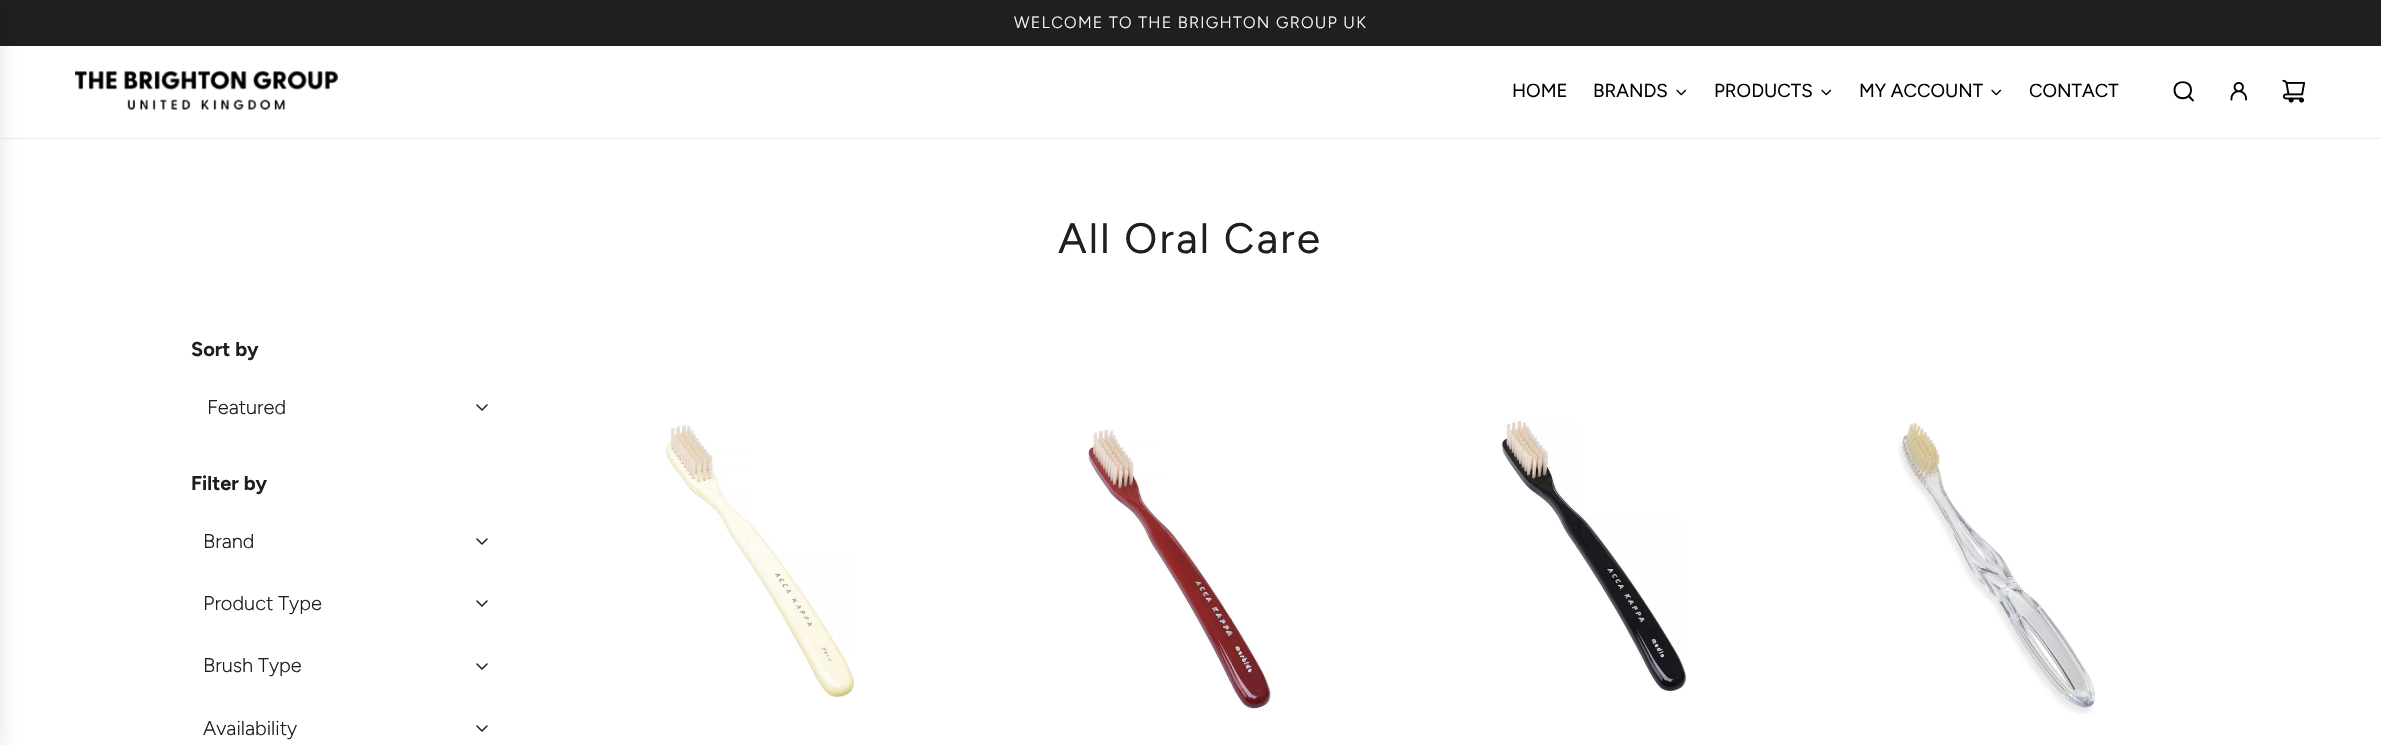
#include "include/core/SkBlurTypes.h"
#include "include/core/SkCanvas.h"
#include "include/core/SkData.h"
#include "include/core/SkFont.h"
#include "include/core/SkFontMgr.h"
#include "include/core/SkImage.h"
#include "include/core/SkMaskFilter.h"
#include "include/core/SkPaint.h"
#include "include/core/SkPathBuilder.h"
#include "include/core/SkTextBlob.h"
#include "include/effects/SkDashPathEffect.h"
#include "include/effects/SkGradientShader.h"
#include "include/utils/SkParsePath.h"

extern sk_sp<SkFontMgr> fontMgr;

void draw(SkCanvas* canvas) {
  SkPaint p;
  p.setAntiAlias(true);
  auto spacedText = [&](const char* s, float x, float y, const SkFont& font, const SkPaint& ink, float letter, float word) {
    std::vector<SkGlyphID> glyphs(font.countText(s, strlen(s), SkTextEncoding::kUTF8));
    std::vector<float> xs(glyphs.size());
    font.textToGlyphs(s, strlen(s), SkTextEncoding::kUTF8, glyphs);
    font.getXPos(glyphs, xs, x);
    float extra = 0;
    for (size_t i = 0; i < glyphs.size(); i++) {
      xs[i] += extra;
      extra += letter + word * (glyphs[i] == font.unicharToGlyph(' '));
    }
    canvas->drawTextBlob(SkTextBlob::MakeFromPosHGlyphs(glyphs, xs, y, font), 0, 0, ink);
  };
  canvas->clear(SK_ColorWHITE);
  p.setColor(SkColorSetRGB(31, 31, 31));
  canvas->drawRect(SkRect::MakeLTRB(0, 0, 2381, 46), p);
  p.setColor(SkColorSetRGB(237, 237, 237));
  canvas->drawRect(SkRect::MakeLTRB(0, 138, 2381, 139), p);
  p.setColor(SkColorSetARGB(26, 0, 0, 0));
  p.setMaskFilter(SkMaskFilter::MakeBlur(kNormal_SkBlurStyle, 9.5f));
  canvas->drawRect(SkRect::MakeLTRB(-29, 6, 0, 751), p);
  p.setMaskFilter(nullptr);
  canvas->drawImageRect(SkImages::DeferredFromEncodedData(SkData::MakeFromFileName("images/1.png")), SkRect::MakeLTRB(75, 70, 338, 110), SkSamplingOptions());
  canvas->drawImageRect(SkImages::DeferredFromEncodedData(SkData::MakeFromFileName("images/2.png")), SkRect::MakeLTRB(1676, 89, 1687, 96), SkSamplingOptions());
  canvas->drawImageRect(SkImages::DeferredFromEncodedData(SkData::MakeFromFileName("images/2.png")), SkRect::MakeLTRB(1821, 89, 1832, 96), SkSamplingOptions());
  canvas->drawImageRect(SkImages::DeferredFromEncodedData(SkData::MakeFromFileName("images/2.png")), SkRect::MakeLTRB(1991, 89, 2002, 96), SkSamplingOptions());
  p.setStyle(SkPaint::kStroke_Style);
  p.setStrokeWidth(1.9f);
  p.setStrokeCap(SkPaint::kRound_Cap);
  p.setStrokeJoin(SkPaint::kRound_Join);
  p.setColor(SK_ColorBLACK);
  canvas->drawPath(SkPathBuilder().moveTo(2189, 96.5f).lineTo(2193, 100.5f).moveTo(2174.5f, 90).cubicTo(2174.5f, 101, 2191, 101, 2191, 90).cubicTo(2191, 79.5f, 2174.5f, 79.5f, 2174.5f, 90).close().detach(), p);
  canvas->drawImageRect(SkImages::DeferredFromEncodedData(SkData::MakeFromFileName("images/3.png")), SkRect::MakeLTRB(2230, 82, 2247, 101), SkSamplingOptions());
  canvas->drawImageRect(SkImages::DeferredFromEncodedData(SkData::MakeFromFileName("images/4.png")), SkRect::MakeLTRB(2282, 79, 2306, 103), SkSamplingOptions());
  p.setStrokeWidth(1.5f);
  p.setColor(SkColorSetRGB(31, 31, 31));
  canvas->drawPath(SkPathBuilder().moveTo(477, 405).lineTo(482, 410).lineTo(487, 405).detach(), p);
  canvas->drawPath(SkPathBuilder().moveTo(477, 539).lineTo(482, 544).lineTo(487, 539).detach(), p);
  canvas->drawPath(SkPathBuilder().moveTo(477, 601).lineTo(482, 606).lineTo(487, 601).detach(), p);
  canvas->drawPath(SkPathBuilder().moveTo(477, 664).lineTo(482, 669).lineTo(487, 664).detach(), p);
  canvas->drawPath(SkPathBuilder().moveTo(477, 726).lineTo(482, 731).lineTo(487, 726).detach(), p);
  canvas->drawImageRect(SkImages::DeferredFromEncodedData(SkData::MakeFromFileName("images/5.png")), SkRect::MakeLTRB(666, 425, 855, 697), SkSamplingOptions());
  canvas->drawImageRect(SkImages::DeferredFromEncodedData(SkData::MakeFromFileName("images/6.png")), SkRect::MakeLTRB(1088, 429, 1272, 710), SkSamplingOptions());
  canvas->drawImageRect(SkImages::DeferredFromEncodedData(SkData::MakeFromFileName("images/7.png")), SkRect::MakeLTRB(1501, 420, 1686, 692), SkSamplingOptions());
  canvas->drawImageRect(SkImages::DeferredFromEncodedData(SkData::MakeFromFileName("images/8.png")), SkRect::MakeLTRB(1898, 423, 2096, 714), SkSamplingOptions());
  SkFont font1(fontMgr->matchFamilyStyle("Figtree", SkFontStyle(300, SkFontStyle::kNormal_Width, SkFontStyle::kUpright_Slant)), 16.25f);
  font1.setSubpixel(true);
  p.setStyle(SkPaint::kFill_Style);
  p.setColor(SK_ColorWHITE);
  spacedText("WELCOME TO THE BRIGHTON GROUP UK", 1014, 28, font1, p, 1.25f, 0);
  SkFont font2(fontMgr->matchFamilyStyle("Figtree", SkFontStyle::Normal()), 18.75f);
  font2.setSubpixel(true);
  p.setColor(SK_ColorBLACK);
  canvas->drawString("HOME", 1512, 97, font2, p);
  canvas->drawString("BRANDS", 1593, 97, font2, p);
  canvas->drawString("PRODUCTS", 1714, 97, font2, p);
  canvas->drawString("MY ACCOUNT", 1859, 97, font2, p);
  canvas->drawString("CONTACT", 2029, 97, font2, p);
  SkFont font3(fontMgr->matchFamilyStyle("Figtree", SkFontStyle::Normal()), 42.5f);
  font3.setSubpixel(true);
  p.setColor(SkColorSetRGB(31, 31, 31));
  spacedText("All Oral Care", 1058, 253, font3, p, 2.1f, 0);
  SkFont font4(fontMgr->matchFamilyStyle("Figtree", SkFontStyle::Bold()), 20);
  font4.setSubpixel(true);
  canvas->drawString("Sort by", 191, 356, font4, p);
  SkFont font5(fontMgr->matchFamilyStyle("Figtree", SkFontStyle(300, SkFontStyle::kNormal_Width, SkFontStyle::kUpright_Slant)), 20);
  font5.setSubpixel(true);
  canvas->drawString("Featured", 207, 414, font5, p);
  canvas->drawString("Filter by", 191, 490, font4, p);
  canvas->drawString("Brand", 203, 548, font5, p);
  canvas->drawString("Product Type", 203, 610, font5, p);
  canvas->drawString("Brush Type", 203, 672, font5, p);
  canvas->drawString("Availability", 203, 735, font5, p);
}
